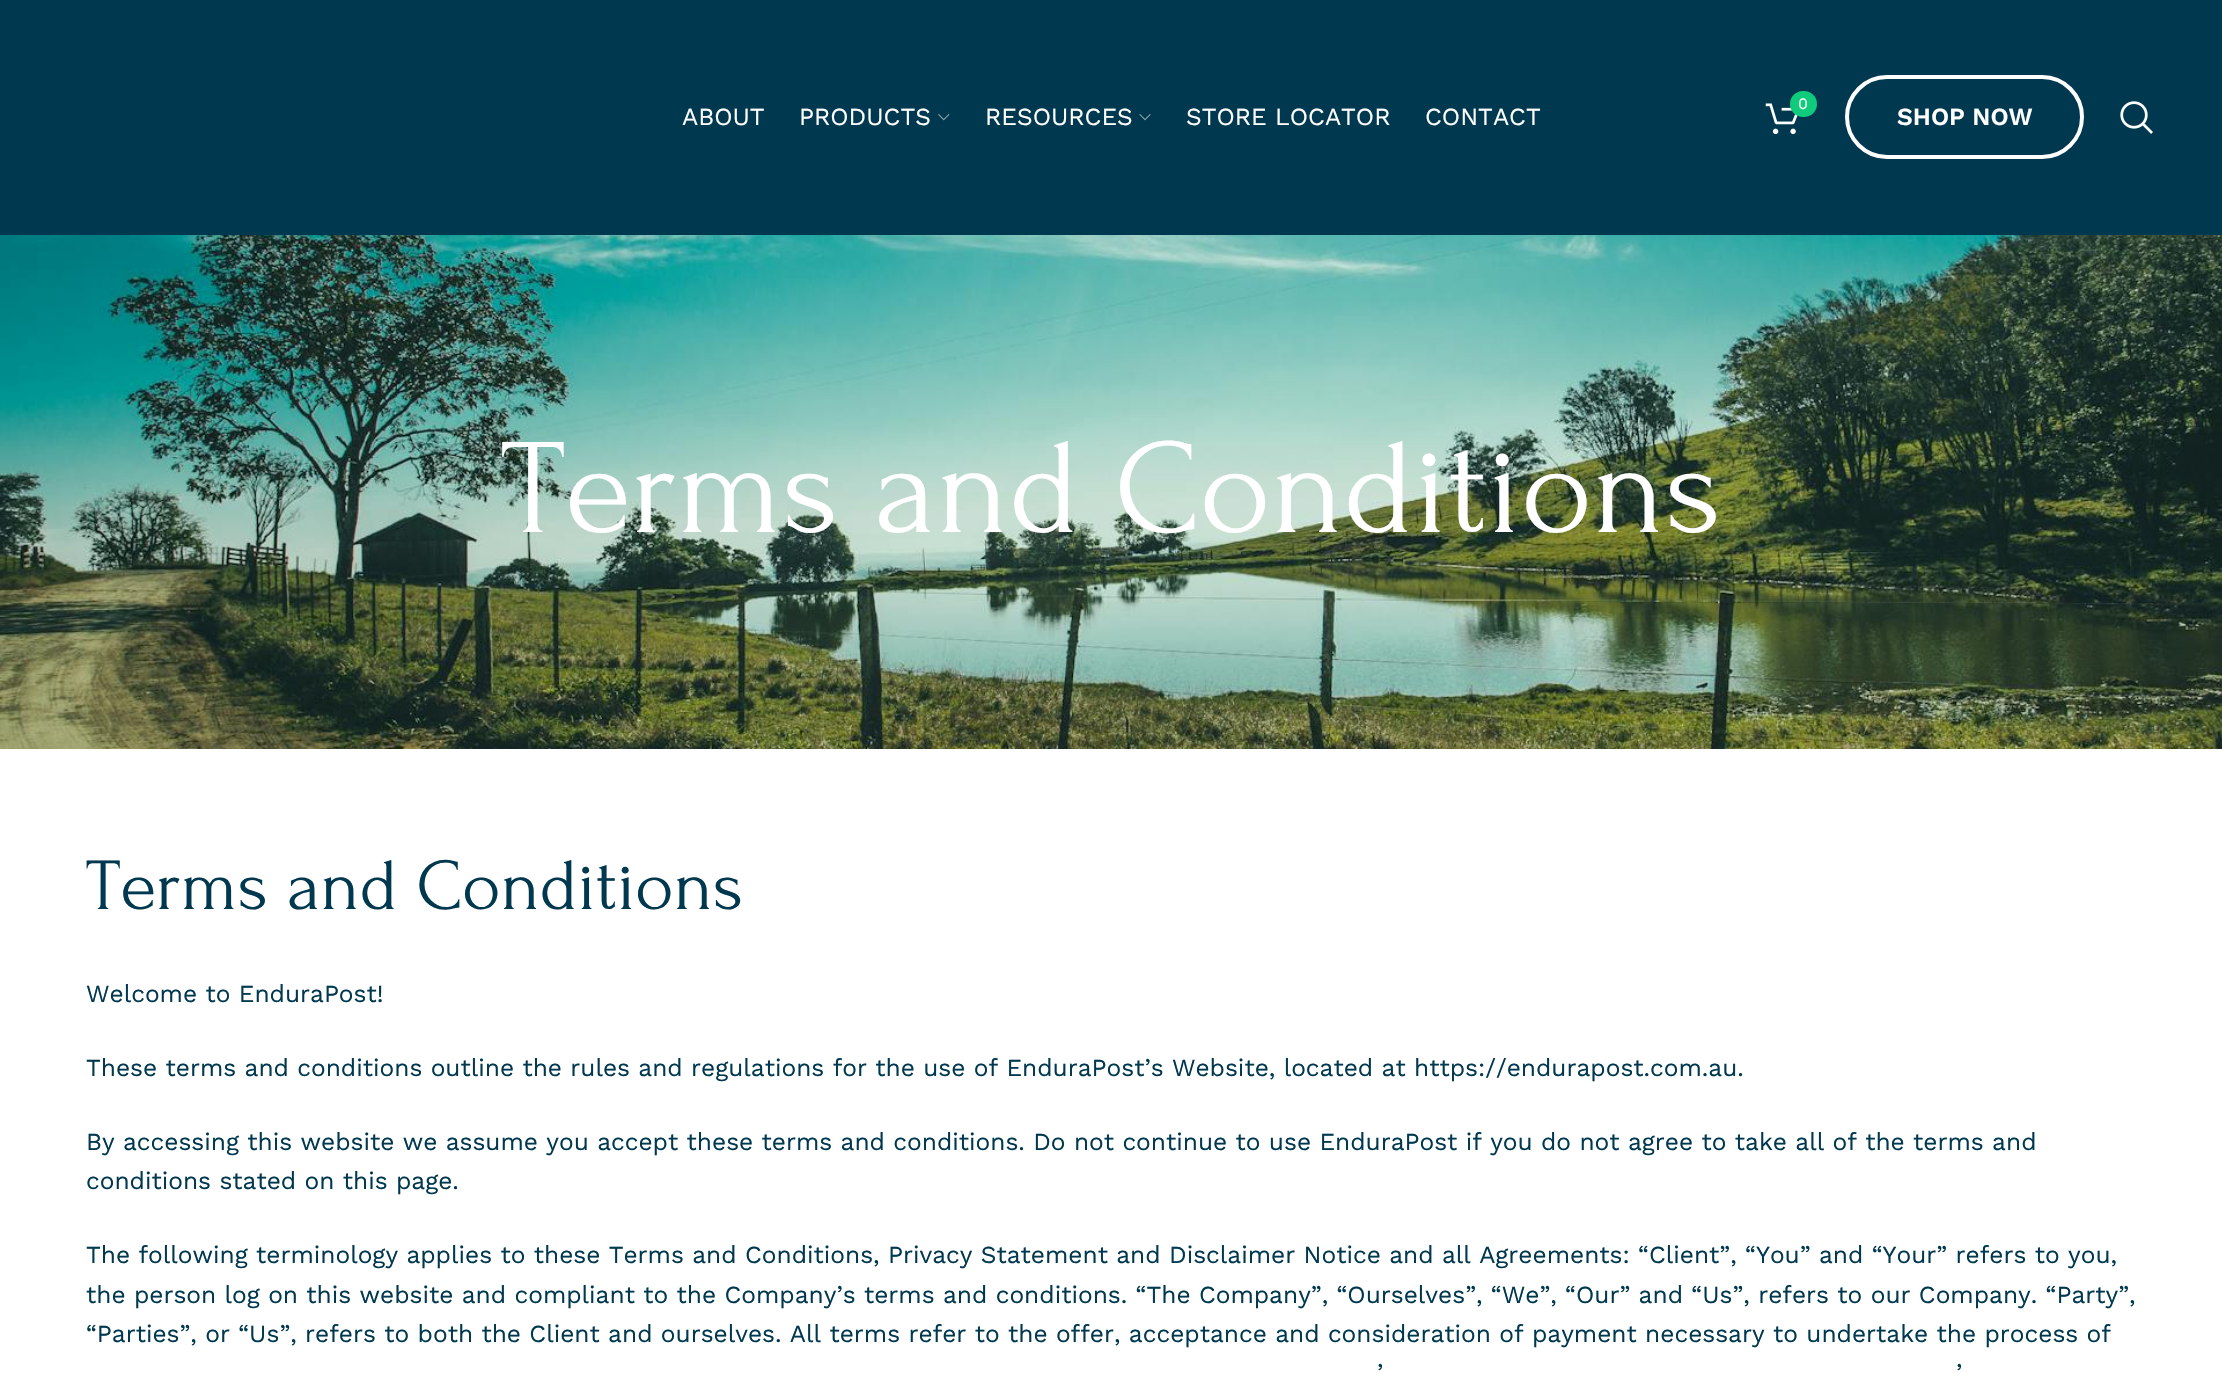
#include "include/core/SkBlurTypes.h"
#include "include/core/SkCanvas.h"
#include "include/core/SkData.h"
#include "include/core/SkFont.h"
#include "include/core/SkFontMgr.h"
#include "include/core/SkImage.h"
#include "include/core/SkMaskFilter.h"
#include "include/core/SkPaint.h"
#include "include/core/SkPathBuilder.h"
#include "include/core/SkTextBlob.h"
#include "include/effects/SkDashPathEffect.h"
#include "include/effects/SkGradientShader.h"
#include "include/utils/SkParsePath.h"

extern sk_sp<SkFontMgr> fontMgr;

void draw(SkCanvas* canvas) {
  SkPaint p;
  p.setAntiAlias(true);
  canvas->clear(SK_ColorWHITE);
  p.setColor(SkColorSetRGB(0, 56, 79));
  canvas->drawRect(SkRect::MakeLTRB(0, 0, 2222, 235), p);
  canvas->drawImageRect(SkImages::DeferredFromEncodedData(SkData::MakeFromFileName("images/1.png")), SkRect::MakeLTRB(938, 114, 950, 121), SkSamplingOptions());
  canvas->drawImageRect(SkImages::DeferredFromEncodedData(SkData::MakeFromFileName("images/2.png")), SkRect::MakeLTRB(1139, 114, 1151, 121), SkSamplingOptions());
  canvas->drawImageRect(SkImages::DeferredFromEncodedData(SkData::MakeFromFileName("images/3.png")), SkRect::MakeLTRB(1765, 103, 1798, 135), SkSamplingOptions());
  p.setColor(SkColorSetRGB(15, 204, 124));
  canvas->drawRoundRect(SkRect::MakeLTRB(1790, 91, 1817, 117), 13, 13, p);
  p.setStyle(SkPaint::kStroke_Style);
  p.setStrokeWidth(4);
  p.setColor(SK_ColorWHITE);
  canvas->drawRoundRect(SkRect::MakeLTRB(1847, 77, 2082, 157), 40, 40, p);
  canvas->drawImageRect(SkImages::DeferredFromEncodedData(SkData::MakeFromFileName("images/4.png")), SkRect::MakeLTRB(2120, 101, 2153, 134), SkSamplingOptions());
  canvas->drawImageRect(SkImages::DeferredFromEncodedData(SkData::MakeFromFileName("images/5.png")), SkRect::MakeLTRB(0, 235, 2222, 749), SkSamplingOptions());
  SkFont font1(fontMgr->matchFamilyStyle("Work Sans", SkFontStyle::Normal()), 24.5f);
  font1.setSubpixel(true);
  p.setStyle(SkPaint::kFill_Style);
  canvas->drawString("ABOUT", 682, 125, font1, p);
  canvas->drawString("PRODUCTS", 799, 125, font1, p);
  canvas->drawString("RESOURCES", 985, 125, font1, p);
  canvas->drawString("STORE LOCATOR", 1186, 125, font1, p);
  canvas->drawString("CONTACT", 1425, 125, font1, p);
  SkFont font2(fontMgr->matchFamilyStyle("Work Sans", SkFontStyle::Normal()), 16);
  font2.setSubpixel(true);
  canvas->drawString("0", 1798, 109, font2, p);
  SkFont font3(fontMgr->matchFamilyStyle("Work Sans", SkFontStyle(600, SkFontStyle::kNormal_Width, SkFontStyle::kUpright_Slant)), 24.5f);
  font3.setSubpixel(true);
  canvas->drawString("SHOP NOW", 1897, 125, font3, p);
  SkFont font4(fontMgr->matchFamilyStyle("Forum", SkFontStyle::Normal()), 136.5f);
  font4.setSubpixel(true);
  canvas->drawString("Terms and Conditions", 501, 532, font4, p);
  SkFont font5(fontMgr->matchFamilyStyle("Forum", SkFontStyle::Normal()), 73.5f);
  font5.setSubpixel(true);
  p.setColor(SkColorSetRGB(0, 56, 79));
  canvas->drawString("Terms and Conditions", 86, 909, font5, p);
  canvas->drawString("Welcome to EnduraPost!", 86, 1002, font1, p);
  canvas->drawString("These terms and conditions outline the rules and regulations for the use of EnduraPost’s Website, located at https://endurapost.com.au.", 86, 1076, font1, p);
  canvas->drawString("By accessing this website we assume you accept these terms and conditions. Do not continue to use EnduraPost if you do not agree to take all of the terms and", 86, 1150, font1, p);
  canvas->drawString("conditions stated on this page.", 86, 1189, font1, p);
  canvas->drawString("The following terminology applies to these Terms and Conditions, Privacy Statement and Disclaimer Notice and all Agreements: “Client”, “You” and “Your” refers to you,", 86, 1263, font1, p);
  canvas->drawString("the person log on this website and compliant to the Company’s terms and conditions. “The Company”, “Ourselves”, “We”, “Our” and “Us”, refers to our Company. “Party”,", 86, 1303, font1, p);
  canvas->drawString("“Parties”, or “Us”, refers to both the Client and ourselves. All terms refer to the offer, acceptance and consideration of payment necessary to undertake the process of", 86, 1342, font1, p);
  canvas->drawString("’", 1377, 1381, font1, p);
  canvas->drawString("’", 1956, 1381, font1, p);
}
